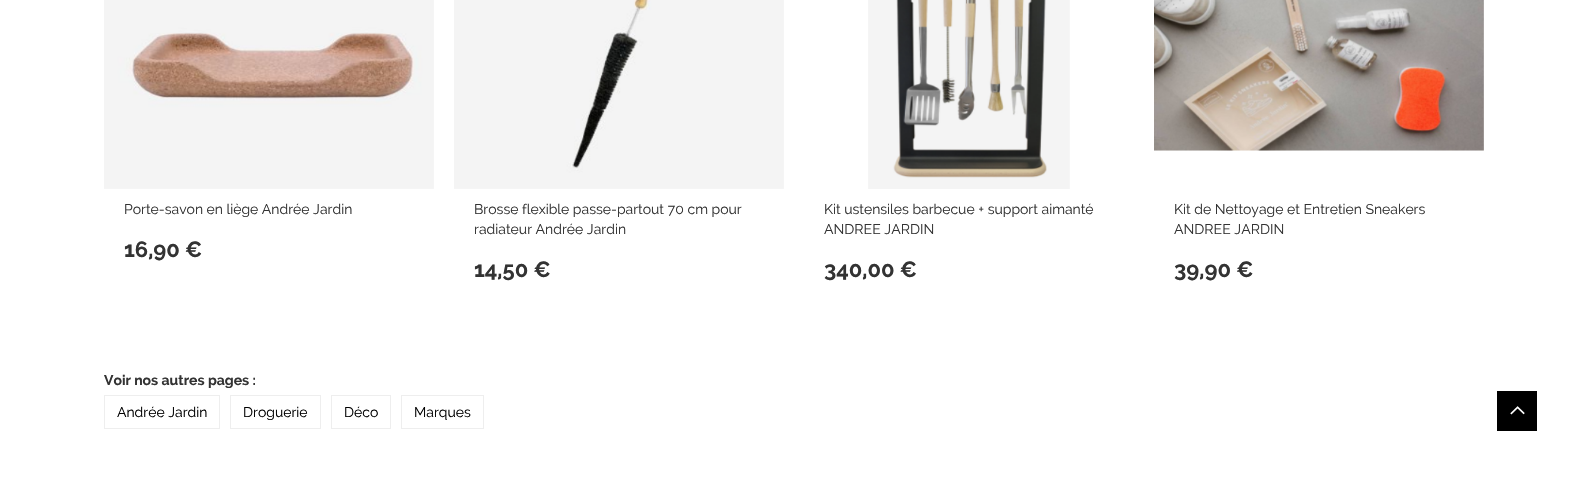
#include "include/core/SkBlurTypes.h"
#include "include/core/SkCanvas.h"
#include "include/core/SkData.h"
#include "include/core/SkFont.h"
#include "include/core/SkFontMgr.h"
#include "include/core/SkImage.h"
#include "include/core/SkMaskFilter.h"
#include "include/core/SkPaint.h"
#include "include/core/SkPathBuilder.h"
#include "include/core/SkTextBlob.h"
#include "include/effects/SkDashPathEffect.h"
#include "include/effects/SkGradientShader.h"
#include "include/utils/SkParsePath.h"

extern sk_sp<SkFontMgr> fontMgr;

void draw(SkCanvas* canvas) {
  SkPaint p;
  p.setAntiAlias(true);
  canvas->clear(SK_ColorWHITE);
  canvas->drawImageRect(SkImages::DeferredFromEncodedData(SkData::MakeFromFileName("images/1.png")), SkRect::MakeLTRB(104, 0, 434, 189), SkSamplingOptions());
  canvas->drawImageRect(SkImages::DeferredFromEncodedData(SkData::MakeFromFileName("images/2.png")), SkRect::MakeLTRB(454, 0, 784, 189), SkSamplingOptions());
  canvas->drawImageRect(SkImages::DeferredFromEncodedData(SkData::MakeFromFileName("images/3.png")), SkRect::MakeLTRB(868, 0, 1070, 189), SkSamplingOptions());
  canvas->drawImageRect(SkImages::DeferredFromEncodedData(SkData::MakeFromFileName("images/4.png")), SkRect::MakeLTRB(1154, 0, 1484, 151), SkSamplingOptions());
  p.setStyle(SkPaint::kStroke_Style);
  p.setStrokeWidth(1);
  p.setColor(SkColorSetRGB(238, 238, 238));
  canvas->drawRect(SkRect::MakeLTRB(104.5f, 395.5f, 219.5f, 428.5f), p);
  canvas->drawRect(SkRect::MakeLTRB(230.5f, 395.5f, 320.5f, 428.5f), p);
  canvas->drawRect(SkRect::MakeLTRB(331.5f, 395.5f, 390.5f, 428.5f), p);
  canvas->drawRect(SkRect::MakeLTRB(401.5f, 395.5f, 483.5f, 428.5f), p);
  p.setStyle(SkPaint::kFill_Style);
  p.setColor(SK_ColorBLACK);
  canvas->drawRect(SkRect::MakeLTRB(1497, 391, 1537, 431), p);
  canvas->drawImageRect(SkImages::DeferredFromEncodedData(SkData::MakeFromFileName("images/5.png")), SkRect::MakeLTRB(1510, 406, 1525, 415), SkSamplingOptions());
  SkFont font1(fontMgr->matchFamilyStyle("Raleway", SkFontStyle::Normal()), 14);
  font1.setSubpixel(true);
  p.setColor(SkColorSetRGB(51, 51, 51));
  canvas->drawString("Porte-savon en liège Andrée Jardin", 124, 214, font1, p);
  SkFont font2(fontMgr->matchFamilyStyle("Raleway", SkFontStyle::Bold()), 22);
  font2.setSubpixel(true);
  canvas->drawString("16,90 €", 124, 257, font2, p);
  canvas->drawString("Brosse flexible passe-partout 70 cm pour", 474, 214, font1, p);
  canvas->drawString("radiateur Andrée Jardin", 474, 234, font1, p);
  canvas->drawString("14,50 €", 474, 277, font2, p);
  canvas->drawString("Kit ustensiles barbecue + support aimanté", 824, 214, font1, p);
  canvas->drawString("ANDREE JARDIN", 824, 234, font1, p);
  canvas->drawString("340,00 €", 824, 277, font2, p);
  canvas->drawString("Kit de Nettoyage et Entretien Sneakers", 1174, 214, font1, p);
  canvas->drawString("ANDREE JARDIN", 1174, 234, font1, p);
  canvas->drawString("39,90 €", 1174, 277, font2, p);
  SkFont font3(fontMgr->matchFamilyStyle("Raleway", SkFontStyle::Bold()), 14);
  font3.setSubpixel(true);
  canvas->drawString("Voir nos autres pages :", 104, 385, font3, p);
  p.setColor(SK_ColorBLACK);
  canvas->drawString("Andrée Jardin", 117, 417, font1, p);
  canvas->drawString("Droguerie", 243, 417, font1, p);
  canvas->drawString("Déco", 344, 417, font1, p);
  canvas->drawString("Marques", 414, 417, font1, p);
}
